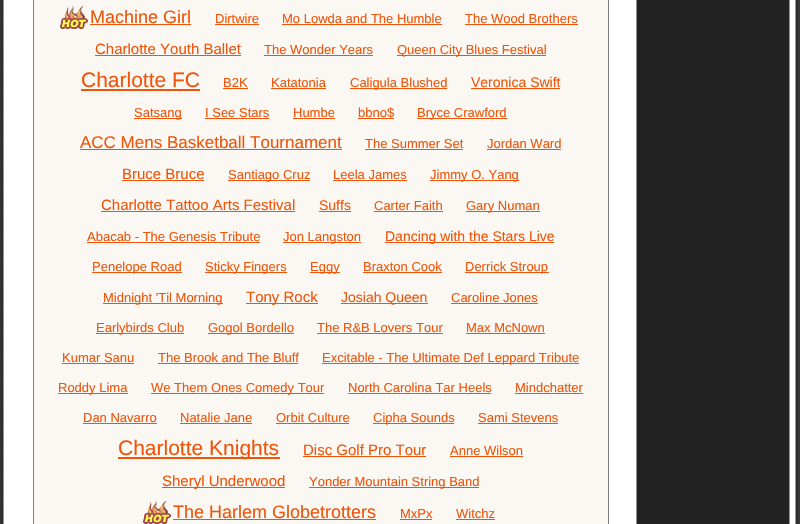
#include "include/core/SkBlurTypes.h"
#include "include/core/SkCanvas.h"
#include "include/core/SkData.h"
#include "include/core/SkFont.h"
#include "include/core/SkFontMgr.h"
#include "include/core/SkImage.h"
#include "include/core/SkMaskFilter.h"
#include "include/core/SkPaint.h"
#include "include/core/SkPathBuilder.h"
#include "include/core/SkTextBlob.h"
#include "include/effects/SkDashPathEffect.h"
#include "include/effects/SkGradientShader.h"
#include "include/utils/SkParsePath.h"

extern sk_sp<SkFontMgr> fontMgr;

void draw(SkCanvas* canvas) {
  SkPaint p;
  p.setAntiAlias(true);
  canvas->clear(SK_ColorWHITE);
  canvas->drawImageRect(SkImages::DeferredFromEncodedData(SkData::MakeFromFileName("images/1.png")), SkRect::MakeLTRB(0, 0, 800, 524), SkSamplingOptions());
  p.setColor(SkColorSetRGB(251, 248, 243));
  canvas->drawRect(SkRect::MakeLTRB(34, 0, 608, 524), p);
  p.setColor(SkColorSetRGB(128, 128, 128));
  canvas->drawRect(SkRect::MakeLTRB(608, 0, 609, 524), p);
  canvas->drawRect(SkRect::MakeLTRB(33, 0, 34, 524), p);
  canvas->drawImageRect(SkImages::DeferredFromEncodedData(SkData::MakeFromFileName("images/2.png")), SkRect::MakeLTRB(60, 5, 88, 29), SkSamplingOptions());
  p.setColor(SkColorSetRGB(239, 84, 10));
  canvas->drawRect(SkRect::MakeLTRB(90, 24, 191, 25), p);
  canvas->drawRect(SkRect::MakeLTRB(215, 24, 259, 25), p);
  canvas->drawRect(SkRect::MakeLTRB(282, 24, 442, 25), p);
  canvas->drawRect(SkRect::MakeLTRB(465, 24, 578, 25), p);
  canvas->drawRect(SkRect::MakeLTRB(95, 55, 241, 56), p);
  canvas->drawRect(SkRect::MakeLTRB(264, 55, 373, 56), p);
  canvas->drawRect(SkRect::MakeLTRB(397, 55, 546, 56), p);
  canvas->drawRect(SkRect::MakeLTRB(81, 89, 200, 91), p);
  canvas->drawRect(SkRect::MakeLTRB(223, 88, 248, 89), p);
  canvas->drawRect(SkRect::MakeLTRB(271, 88, 326, 89), p);
  canvas->drawRect(SkRect::MakeLTRB(350, 88, 447, 89), p);
  canvas->drawRect(SkRect::MakeLTRB(471, 88, 560, 89), p);
  canvas->drawRect(SkRect::MakeLTRB(134, 118, 182, 119), p);
  canvas->drawRect(SkRect::MakeLTRB(205, 118, 269, 119), p);
  canvas->drawRect(SkRect::MakeLTRB(293, 118, 335, 119), p);
  canvas->drawRect(SkRect::MakeLTRB(358, 118, 394, 119), p);
  canvas->drawRect(SkRect::MakeLTRB(417, 118, 507, 119), p);
  canvas->drawRect(SkRect::MakeLTRB(80, 149, 342, 150), p);
  canvas->drawRect(SkRect::MakeLTRB(365, 149, 463, 150), p);
  canvas->drawRect(SkRect::MakeLTRB(487, 149, 561, 150), p);
  canvas->drawRect(SkRect::MakeLTRB(122, 180, 204, 181), p);
  canvas->drawRect(SkRect::MakeLTRB(228, 180, 310, 181), p);
  canvas->drawRect(SkRect::MakeLTRB(333, 180, 407, 181), p);
  canvas->drawRect(SkRect::MakeLTRB(430, 180, 519, 181), p);
  canvas->drawRect(SkRect::MakeLTRB(101, 211, 295, 212), p);
  canvas->drawRect(SkRect::MakeLTRB(319, 211, 351, 212), p);
  canvas->drawRect(SkRect::MakeLTRB(374, 211, 443, 212), p);
  canvas->drawRect(SkRect::MakeLTRB(466, 211, 540, 212), p);
  canvas->drawRect(SkRect::MakeLTRB(87, 242, 260, 243), p);
  canvas->drawRect(SkRect::MakeLTRB(283, 242, 361, 243), p);
  canvas->drawRect(SkRect::MakeLTRB(385, 242, 554, 243), p);
  canvas->drawRect(SkRect::MakeLTRB(92, 272, 182, 273), p);
  canvas->drawRect(SkRect::MakeLTRB(205, 272, 287, 273), p);
  canvas->drawRect(SkRect::MakeLTRB(310, 272, 340, 273), p);
  canvas->drawRect(SkRect::MakeLTRB(363, 272, 442, 273), p);
  canvas->drawRect(SkRect::MakeLTRB(465, 272, 549, 273), p);
  canvas->drawRect(SkRect::MakeLTRB(103, 303, 223, 304), p);
  canvas->drawRect(SkRect::MakeLTRB(246, 303, 318, 304), p);
  canvas->drawRect(SkRect::MakeLTRB(341, 303, 428, 304), p);
  canvas->drawRect(SkRect::MakeLTRB(451, 303, 538, 304), p);
  canvas->drawRect(SkRect::MakeLTRB(96, 333, 184, 334), p);
  canvas->drawRect(SkRect::MakeLTRB(208, 333, 294, 334), p);
  canvas->drawRect(SkRect::MakeLTRB(317, 333, 443, 334), p);
  canvas->drawRect(SkRect::MakeLTRB(466, 333, 545, 334), p);
  canvas->drawRect(SkRect::MakeLTRB(62, 363, 134, 364), p);
  canvas->drawRect(SkRect::MakeLTRB(158, 363, 298, 364), p);
  canvas->drawRect(SkRect::MakeLTRB(322, 363, 579, 364), p);
  canvas->drawRect(SkRect::MakeLTRB(58, 393, 128, 394), p);
  canvas->drawRect(SkRect::MakeLTRB(151, 393, 324, 394), p);
  canvas->drawRect(SkRect::MakeLTRB(348, 393, 491, 394), p);
  canvas->drawRect(SkRect::MakeLTRB(515, 393, 583, 394), p);
  canvas->drawRect(SkRect::MakeLTRB(83, 423, 157, 424), p);
  canvas->drawRect(SkRect::MakeLTRB(180, 423, 252, 424), p);
  canvas->drawRect(SkRect::MakeLTRB(276, 423, 349, 424), p);
  canvas->drawRect(SkRect::MakeLTRB(373, 423, 454, 424), p);
  canvas->drawRect(SkRect::MakeLTRB(478, 423, 558, 424), p);
  canvas->drawRect(SkRect::MakeLTRB(118, 457, 280, 459), p);
  canvas->drawRect(SkRect::MakeLTRB(303, 456, 426, 457), p);
  canvas->drawRect(SkRect::MakeLTRB(450, 456, 523, 457), p);
  canvas->drawRect(SkRect::MakeLTRB(162, 487, 285, 488), p);
  canvas->drawRect(SkRect::MakeLTRB(309, 487, 479, 488), p);
  canvas->drawImageRect(SkImages::DeferredFromEncodedData(SkData::MakeFromFileName("images/2.png")), SkRect::MakeLTRB(143, 500, 171, 524), SkSamplingOptions());
  canvas->drawRect(SkRect::MakeLTRB(173, 519, 376, 520), p);
  canvas->drawRect(SkRect::MakeLTRB(400, 519, 432, 520), p);
  canvas->drawRect(SkRect::MakeLTRB(456, 519, 495, 520), p);
  SkFont font1(fontMgr->matchFamilyStyle("Liberation Sans", SkFontStyle::Normal()), 18);
  font1.setSubpixel(true);
  canvas->drawString("Machine Girl", 90, 23, font1, p);
  SkFont font2(fontMgr->matchFamilyStyle("Liberation Sans", SkFontStyle::Normal()), 13);
  font2.setSubpixel(true);
  canvas->drawString("Dirtwire", 215, 23, font2, p);
  canvas->drawString("Mo Lowda and The Humble", 282, 23, font2, p);
  canvas->drawString("The Wood Brothers", 465, 23, font2, p);
  SkFont font3(fontMgr->matchFamilyStyle("Liberation Sans", SkFontStyle::Normal()), 15);
  font3.setSubpixel(true);
  canvas->drawString("Charlotte Youth Ballet", 95, 54, font3, p);
  canvas->drawString("The Wonder Years", 264, 54, font2, p);
  canvas->drawString("Queen City Blues Festival", 397, 54, font2, p);
  SkFont font4(fontMgr->matchFamilyStyle("Liberation Sans", SkFontStyle::Normal()), 21);
  font4.setSubpixel(true);
  canvas->drawString("Charlotte FC", 81, 87, font4, p);
  canvas->drawString("B2K", 223, 87, font2, p);
  canvas->drawString("Katatonia", 271, 87, font2, p);
  canvas->drawString("Caligula Blushed", 350, 87, font2, p);
  SkFont font5(fontMgr->matchFamilyStyle("Liberation Sans", SkFontStyle::Normal()), 14);
  font5.setSubpixel(true);
  canvas->drawString("Veronica Swift", 471, 87, font5, p);
  canvas->drawString("Satsang", 134, 117, font2, p);
  canvas->drawString("I See Stars", 205, 117, font2, p);
  canvas->drawString("Humbe", 293, 117, font2, p);
  canvas->drawString("bbno$", 358, 117, font2, p);
  canvas->drawString("Bryce Crawford", 417, 117, font2, p);
  SkFont font6(fontMgr->matchFamilyStyle("Liberation Sans", SkFontStyle::Normal()), 17);
  font6.setSubpixel(true);
  canvas->drawString("ACC Mens Basketball Tournament", 80, 148, font6, p);
  canvas->drawString("The Summer Set", 365, 148, font2, p);
  canvas->drawString("Jordan Ward", 487, 148, font2, p);
  canvas->drawString("Bruce Bruce", 122, 179, font3, p);
  canvas->drawString("Santiago Cruz", 228, 179, font2, p);
  canvas->drawString("Leela James", 333, 179, font2, p);
  canvas->drawString("Jimmy O. Yang", 430, 179, font2, p);
  canvas->drawString("Charlotte Tattoo Arts Festival", 101, 210, font3, p);
  canvas->drawString("Suffs", 319, 210, font5, p);
  canvas->drawString("Carter Faith", 374, 210, font2, p);
  canvas->drawString("Gary Numan", 466, 210, font2, p);
  canvas->drawString("Abacab - The Genesis Tribute", 87, 241, font2, p);
  canvas->drawString("Jon Langston", 283, 241, font2, p);
  canvas->drawString("Dancing with the Stars Live", 385, 241, font5, p);
  canvas->drawString("Penelope Road", 92, 271, font2, p);
  canvas->drawString("Sticky Fingers", 205, 271, font2, p);
  canvas->drawString("Eggy", 310, 271, font2, p);
  canvas->drawString("Braxton Cook", 363, 271, font2, p);
  canvas->drawString("Derrick Stroup", 465, 271, font2, p);
  canvas->drawString("Midnight 'Til Morning", 103, 302, font2, p);
  canvas->drawString("Tony Rock", 246, 302, font3, p);
  canvas->drawString("Josiah Queen", 341, 302, font5, p);
  canvas->drawString("Caroline Jones", 451, 302, font2, p);
  canvas->drawString("Earlybirds Club", 96, 332, font2, p);
  canvas->drawString("Gogol Bordello", 208, 332, font2, p);
  canvas->drawString("The R&B Lovers Tour", 317, 332, font2, p);
  canvas->drawString("Max McNown", 466, 332, font2, p);
  canvas->drawString("Kumar Sanu", 62, 362, font2, p);
  canvas->drawString("The Brook and The Bluff", 158, 362, font2, p);
  canvas->drawString("Excitable - The Ultimate Def Leppard Tribute", 322, 362, font2, p);
  canvas->drawString("Roddy Lima", 58, 392, font2, p);
  canvas->drawString("We Them Ones Comedy Tour", 151, 392, font2, p);
  canvas->drawString("North Carolina Tar Heels", 348, 392, font2, p);
  canvas->drawString("Mindchatter", 515, 392, font2, p);
  canvas->drawString("Dan Navarro", 83, 422, font2, p);
  canvas->drawString("Natalie Jane", 180, 422, font2, p);
  canvas->drawString("Orbit Culture", 276, 422, font2, p);
  canvas->drawString("Cipha Sounds", 373, 422, font2, p);
  canvas->drawString("Sami Stevens", 478, 422, font2, p);
  canvas->drawString("Charlotte Knights", 118, 455, font4, p);
  canvas->drawString("Disc Golf Pro Tour", 303, 455, font3, p);
  canvas->drawString("Anne Wilson", 450, 455, font2, p);
  canvas->drawString("Sheryl Underwood", 162, 486, font3, p);
  canvas->drawString("Yonder Mountain String Band", 309, 486, font2, p);
  canvas->drawString("The Harlem Globetrotters", 173, 518, font1, p);
  canvas->drawString("MxPx", 400, 518, font2, p);
  canvas->drawString("Witchz", 456, 518, font2, p);
}
